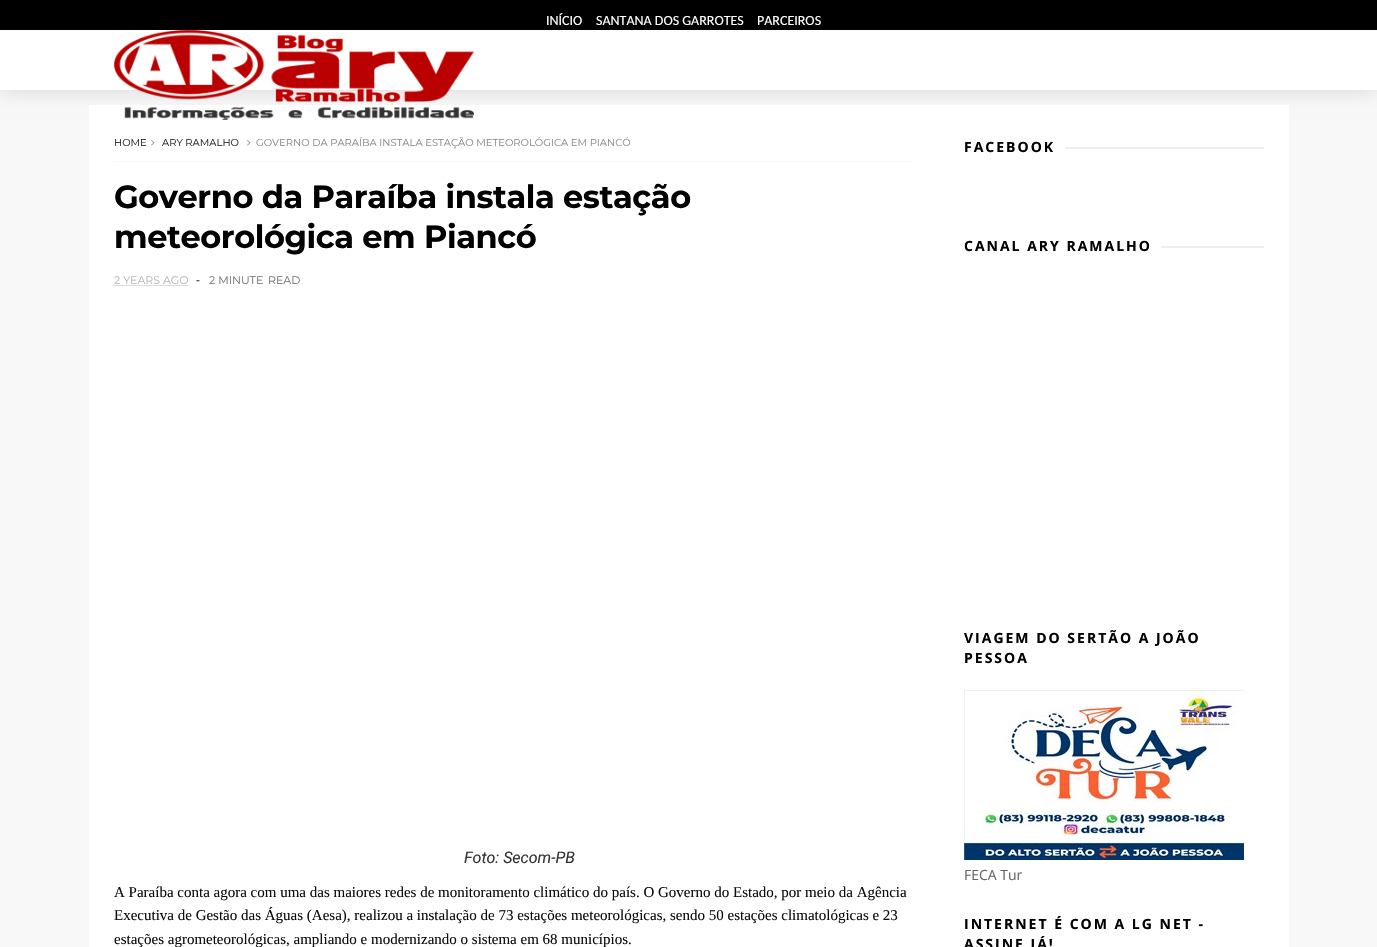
#include "include/core/SkBlurTypes.h"
#include "include/core/SkCanvas.h"
#include "include/core/SkData.h"
#include "include/core/SkFont.h"
#include "include/core/SkFontMgr.h"
#include "include/core/SkImage.h"
#include "include/core/SkMaskFilter.h"
#include "include/core/SkPaint.h"
#include "include/core/SkPathBuilder.h"
#include "include/core/SkTextBlob.h"
#include "include/effects/SkDashPathEffect.h"
#include "include/effects/SkGradientShader.h"
#include "include/utils/SkParsePath.h"

extern sk_sp<SkFontMgr> fontMgr;

void draw(SkCanvas* canvas) {
  SkPaint p;
  p.setAntiAlias(true);
  auto spacedText = [&](const char* s, float x, float y, const SkFont& font, const SkPaint& ink, float letter, float word) {
    std::vector<SkGlyphID> glyphs(font.countText(s, strlen(s), SkTextEncoding::kUTF8));
    std::vector<float> xs(glyphs.size());
    font.textToGlyphs(s, strlen(s), SkTextEncoding::kUTF8, glyphs);
    font.getXPos(glyphs, xs, x);
    float extra = 0;
    for (size_t i = 0; i < glyphs.size(); i++) {
      xs[i] += extra;
      extra += letter + word * (glyphs[i] == font.unicharToGlyph(' '));
    }
    canvas->drawTextBlob(SkTextBlob::MakeFromPosHGlyphs(glyphs, xs, y, font), 0, 0, ink);
  };
  canvas->clear(SkColorSetRGB(248, 248, 248));
  p.setColor(SkColorSetARGB(31, 0, 0, 0));
  p.setMaskFilter(SkMaskFilter::MakeBlur(kNormal_SkBlurStyle, 10));
  canvas->drawRect(SkRect::MakeLTRB(0, 1, 1377, 91), p);
  p.setMaskFilter(nullptr);
  p.setColor(SK_ColorWHITE);
  canvas->drawRect(SkRect::MakeLTRB(0, 30, 1377, 90), p);
  canvas->drawRect(SkRect::MakeLTRB(89, 105, 1289, 947), p);
  canvas->drawImageRect(SkImages::DeferredFromEncodedData(SkData::MakeFromFileName("images/1.png")), SkRect::MakeLTRB(114, 30, 474, 120), SkSamplingOptions());
  p.setColor(SK_ColorBLACK);
  canvas->drawRect(SkRect::MakeLTRB(0, 0, 1377, 30), p);
  canvas->drawImageRect(SkImages::DeferredFromEncodedData(SkData::MakeFromFileName("images/2.png")), SkRect::MakeLTRB(151, 140, 155, 146), SkSamplingOptions());
  canvas->drawImageRect(SkImages::DeferredFromEncodedData(SkData::MakeFromFileName("images/2.png")), SkRect::MakeLTRB(247, 140, 251, 146), SkSamplingOptions());
  p.setColor(SkColorSetRGB(248, 248, 248));
  canvas->drawRect(SkRect::MakeLTRB(114, 161, 914, 162), p);
  p.setStyle(SkPaint::kStroke_Style);
  p.setStrokeWidth(1);
  p.setColor(SkColorSetRGB(183, 183, 183));
  p.setPathEffect(SkDashPathEffect::Make({{1, 1}}, 0));
  canvas->drawPath(SkPathBuilder().moveTo(113.5f, 285.5f).lineTo(188, 285.5f).detach(), p);
  p.setPathEffect(nullptr);
  p.setStyle(SkPaint::kFill_Style);
  p.setColor(SkColorSetRGB(238, 238, 238));
  canvas->drawRect(SkRect::MakeLTRB(1065, 147, 1264, 149), p);
  canvas->drawRect(SkRect::MakeLTRB(1161, 246, 1264, 248), p);
  canvas->drawImageRect(SkImages::DeferredFromEncodedData(SkData::MakeFromFileName("images/3.png")), SkRect::MakeLTRB(964, 690, 1244, 860), SkSamplingOptions());
  SkFont font1(fontMgr->matchFamilyStyle("Carlito", SkFontStyle::Normal()), 14);
  font1.setSubpixel(true);
  p.setColor(SK_ColorWHITE);
  canvas->drawString("INÍCIO", 546, 25, font1, p);
  canvas->drawString("SANTANA DOS GARROTES", 596, 25, font1, p);
  canvas->drawString("PARCEIROS", 757, 25, font1, p);
  SkFont font2(fontMgr->matchFamilyStyle("Montserrat", SkFontStyle::Normal()), 10);
  font2.setSubpixel(true);
  p.setColor(SkColorSetRGB(34, 34, 34));
  canvas->drawString("HOME", 114, 146, font2, p);
  canvas->drawString("ARY RAMALHO", 162, 146, font2, p);
  p.setColor(SkColorSetRGB(136, 136, 136));
  canvas->drawString("GOVERNO DA PARAÍBA INSTALA ESTAÇÃO METEOROLÓGICA EM PIANCÓ", 256, 146, font2, p);
  SkFont font3(fontMgr->matchFamilyStyle("Montserrat", SkFontStyle::Bold()), 32);
  font3.setSubpixel(true);
  p.setColor(SK_ColorBLACK);
  spacedText("Governo da Paraíba instala estação", 114, 208, font3, p, -0.4f, 0);
  spacedText("meteorológica em Piancó", 114, 248, font3, p, -0.4f, 0);
  SkFont font4(fontMgr->matchFamilyStyle("Montserrat", SkFontStyle::Normal()), 11);
  font4.setSubpixel(true);
  p.setColor(SkColorSetRGB(183, 183, 183));
  canvas->drawString("2 YEARS AGO", 114, 284, font4, p);
  SkFont font5(fontMgr->matchFamilyStyle("Open Sans", SkFontStyle::Normal()), 12);
  font5.setSubpixel(true);
  p.setColor(SkColorSetRGB(34, 34, 34));
  canvas->drawString("-", 196, 284, font5, p);
  p.setColor(SkColorSetRGB(117, 117, 117));
  canvas->drawString("2 MINUTE", 209, 284, font4, p);
  canvas->drawString("READ", 268, 284, font4, p);
  SkFont font6(fontMgr->matchFamilyStyle("Roboto", SkFontStyle::Italic()), 16);
  font6.setSubpixel(true);
  p.setColor(SkColorSetRGB(51, 51, 51));
  canvas->drawString("Foto: Secom-PB", 464, 863, font6, p);
  SkFont font7(fontMgr->matchFamilyStyle("Liberation Serif", SkFontStyle::Normal()), 15);
  font7.setSubpixel(true);
  p.setColor(SkColorSetRGB(12, 12, 12));
  canvas->drawString("A Paraíba conta agora com uma das maiores redes de monitoramento climático do país. O Governo do Estado, por meio da Agência", 114, 897, font7, p);
  canvas->drawString("Executiva de Gestão das Águas (Aesa), realizou a instalação de 73 estações meteorológicas, sendo 50 estações climatológicas e 23", 114, 920, font7, p);
  canvas->drawString("estações agrometeorológicas, ampliando e modernizando o sistema em 68 municípios.", 114, 944, font7, p);
  SkFont font8(fontMgr->matchFamilyStyle("Open Sans", SkFontStyle::Bold()), 14);
  font8.setSubpixel(true);
  p.setColor(SK_ColorBLACK);
  spacedText("FACEBOOK", 964, 152, font8, p, 2, 0);
  spacedText("CANAL ARY RAMALHO", 964, 251, font8, p, 2, 0);
  spacedText("VIAGEM DO SERTÃO A JOÃO", 964, 643, font8, p, 2, 0);
  spacedText("PESSOA", 964, 663, font8, p, 2, 0);
  SkFont font9(fontMgr->matchFamilyStyle("Open Sans", SkFontStyle::Normal()), 14);
  font9.setSubpixel(true);
  p.setColor(SkColorSetRGB(102, 102, 102));
  canvas->drawString("FECA Tur", 964, 880, font9, p);
  p.setColor(SK_ColorBLACK);
  spacedText("INTERNET É COM A LG NET -", 964, 929, font8, p, 2, 0);
  spacedText("ASSINE JÁ!", 964, 949, font8, p, 2, 0);
}
